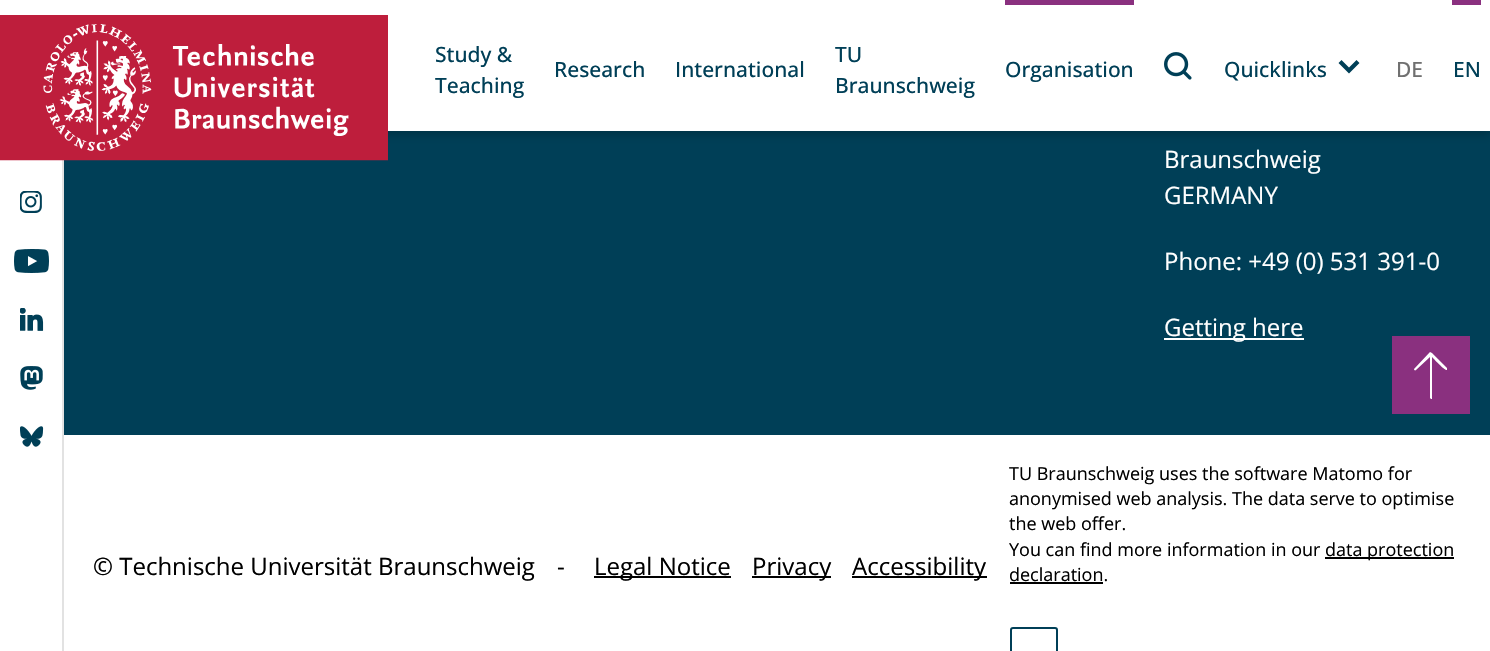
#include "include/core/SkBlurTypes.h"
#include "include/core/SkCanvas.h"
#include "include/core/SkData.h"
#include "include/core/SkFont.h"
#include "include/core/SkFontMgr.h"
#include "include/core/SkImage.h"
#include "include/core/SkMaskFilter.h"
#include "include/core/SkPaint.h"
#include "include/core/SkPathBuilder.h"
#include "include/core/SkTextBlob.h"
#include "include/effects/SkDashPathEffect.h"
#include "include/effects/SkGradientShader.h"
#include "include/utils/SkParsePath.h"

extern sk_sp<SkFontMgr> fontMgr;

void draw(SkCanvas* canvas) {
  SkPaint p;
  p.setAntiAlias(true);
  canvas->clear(SK_ColorWHITE);
  p.setColor(SkColorSetRGB(0, 63, 87));
  canvas->drawRect(SkRect::MakeLTRB(64, 131, 1490, 435), p);
  p.setColor(SkColorSetARGB(51, 0, 0, 0));
  p.setMaskFilter(SkMaskFilter::MakeBlur(kNormal_SkBlurStyle, 4.5f));
  canvas->drawRect(SkRect::MakeLTRB(0, 5, 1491, 135), p);
  p.setMaskFilter(nullptr);
  p.setColor(SK_ColorWHITE);
  canvas->drawRect(SkRect::MakeLTRB(0, 0, 1490, 131), p);
  p.setColor(SkColorSetRGB(226, 226, 226));
  canvas->drawRect(SkRect::MakeLTRB(62, 160, 64, 651), p);
  canvas->drawImageRect(SkImages::DeferredFromEncodedData(SkData::MakeFromFileName("images/1.png")), SkRect::MakeLTRB(0, 15, 388, 161), SkSamplingOptions());
  p.setColor(SkColorSetRGB(138, 48, 127));
  canvas->drawRect(SkRect::MakeLTRB(1005, 0, 1134, 5), p);
  canvas->drawImageRect(SkImages::DeferredFromEncodedData(SkData::MakeFromFileName("images/2.png")), SkRect::MakeLTRB(1164, 52, 1192, 80), SkSamplingOptions());
  p.setColor(SkColorSetRGB(0, 63, 87));
  canvas->drawPath(SkPathBuilder().moveTo(1349, 73.5f).lineTo(1338.5f, 63).lineTo(1341.5f, 60).lineTo(1349, 67.5f).lineTo(1356.5f, 60).lineTo(1359.5f, 63).close().detach(), p);
  p.setColor(SkColorSetRGB(138, 48, 127));
  canvas->drawRect(SkRect::MakeLTRB(1452, 0, 1481, 5), p);
  canvas->drawImageRect(SkImages::DeferredFromEncodedData(SkData::MakeFromFileName("images/3.png")), SkRect::MakeLTRB(20, 191, 42, 213), SkSamplingOptions());
  canvas->drawImageRect(SkImages::DeferredFromEncodedData(SkData::MakeFromFileName("images/4.png")), SkRect::MakeLTRB(14, 249, 49, 273), SkSamplingOptions());
  canvas->drawImageRect(SkImages::DeferredFromEncodedData(SkData::MakeFromFileName("images/5.png")), SkRect::MakeLTRB(20, 308, 44, 331), SkSamplingOptions());
  canvas->drawImageRect(SkImages::DeferredFromEncodedData(SkData::MakeFromFileName("images/6.png")), SkRect::MakeLTRB(20, 366, 43, 390), SkSamplingOptions());
  canvas->drawImageRect(SkImages::DeferredFromEncodedData(SkData::MakeFromFileName("images/7.png")), SkRect::MakeLTRB(20, 426, 44, 447), SkSamplingOptions());
  p.setColor(SK_ColorWHITE);
  canvas->drawRect(SkRect::MakeLTRB(1164, 338, 1304, 340), p);
  p.setColor(SkColorSetRGB(138, 48, 127));
  canvas->drawRect(SkRect::MakeLTRB(1393, 337, 1469, 413), p);
  p.setStyle(SkPaint::kStroke_Style);
  p.setStrokeWidth(2);
  canvas->drawRect(SkRect::MakeLTRB(1393, 337, 1469, 413), p);
  p.setStyle(SkPaint::kFill_Style);
  p.setColor(SK_ColorWHITE);
  canvas->drawPath(SkPathBuilder().moveTo(1432, 353).lineTo(1430, 352).lineTo(1414, 369).cubicTo(1414, 370, 1415, 371, 1416, 370).lineTo(1430, 357).lineTo(1430, 398).lineTo(1431, 399).lineTo(1432, 399).lineTo(1432, 357).cubicTo(1434, 359, 1445, 371, 1447, 370).lineTo(1447, 368).close().detach(), p);
  p.setColor(SK_ColorBLACK);
  canvas->drawRect(SkRect::MakeLTRB(594, 576, 731, 578), p);
  canvas->drawRect(SkRect::MakeLTRB(752, 576, 831, 578), p);
  canvas->drawRect(SkRect::MakeLTRB(852, 576, 987, 578), p);
  canvas->drawRect(SkRect::MakeLTRB(1325, 557, 1454, 559), p);
  canvas->drawRect(SkRect::MakeLTRB(1010, 582, 1103, 584), p);
  p.setStyle(SkPaint::kStroke_Style);
  p.setColor(SkColorSetRGB(0, 63, 87));
  canvas->drawRoundRect(SkRect::MakeLTRB(1011, 628, 1057, 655), 2, 2, p);
  SkFont font1(fontMgr->matchFamilyStyle("Open Sans", SkFontStyle(500, SkFontStyle::kNormal_Width, SkFontStyle::kUpright_Slant)), 21);
  font1.setSubpixel(true);
  p.setStyle(SkPaint::kFill_Style);
  canvas->drawString("Study &", 435, 62, font1, p);
  canvas->drawString("Teaching", 435, 93, font1, p);
  canvas->drawString("Research", 554, 77, font1, p);
  canvas->drawString("International", 675, 77, font1, p);
  canvas->drawString("TU", 835, 62, font1, p);
  canvas->drawString("Braunschweig", 835, 93, font1, p);
  canvas->drawString("Organisation", 1005, 77, font1, p);
  canvas->drawString("Quicklinks", 1224, 77, font1, p);
  p.setColor(SkColorSetRGB(112, 112, 112));
  canvas->drawString("DE", 1396, 77, font1, p);
  p.setColor(SkColorSetRGB(0, 63, 87));
  canvas->drawString("EN", 1453, 77, font1, p);
  SkFont font2(fontMgr->matchFamilyStyle("Open Sans", SkFontStyle::Normal()), 24);
  font2.setSubpixel(true);
  p.setColor(SK_ColorWHITE);
  canvas->drawString("Braunschweig", 1164, 168, font2, p);
  canvas->drawString("GERMANY", 1164, 204, font2, p);
  canvas->drawString("Phone: +49 (0) 531 391-0", 1164, 270, font2, p);
  canvas->drawString("Getting here", 1164, 336, font2, p);
  p.setColor(SK_ColorBLACK);
  canvas->drawString("© Technische Universität Braunschweig", 93, 575, font2, p);
  canvas->drawString("-", 557, 575, font2, p);
  canvas->drawString("Legal Notice", 594, 575, font2, p);
  canvas->drawString("Privacy", 752, 575, font2, p);
  canvas->drawString("Accessibility", 852, 575, font2, p);
  SkFont font3(fontMgr->matchFamilyStyle("Open Sans", SkFontStyle::Normal()), 18);
  font3.setSubpixel(true);
  canvas->drawString("TU Braunschweig uses the software Matomo for", 1009, 480, font3, p);
  canvas->drawString("anonymised web analysis. The data serve to optimise", 1009, 505, font3, p);
  canvas->drawString("the web offer.", 1009, 530, font3, p);
  canvas->drawString("You can find more information in our", 1009, 556, font3, p);
  canvas->drawString("data protection", 1325, 556, font3, p);
  canvas->drawString("declaration.", 1009, 581, font3, p);
}
